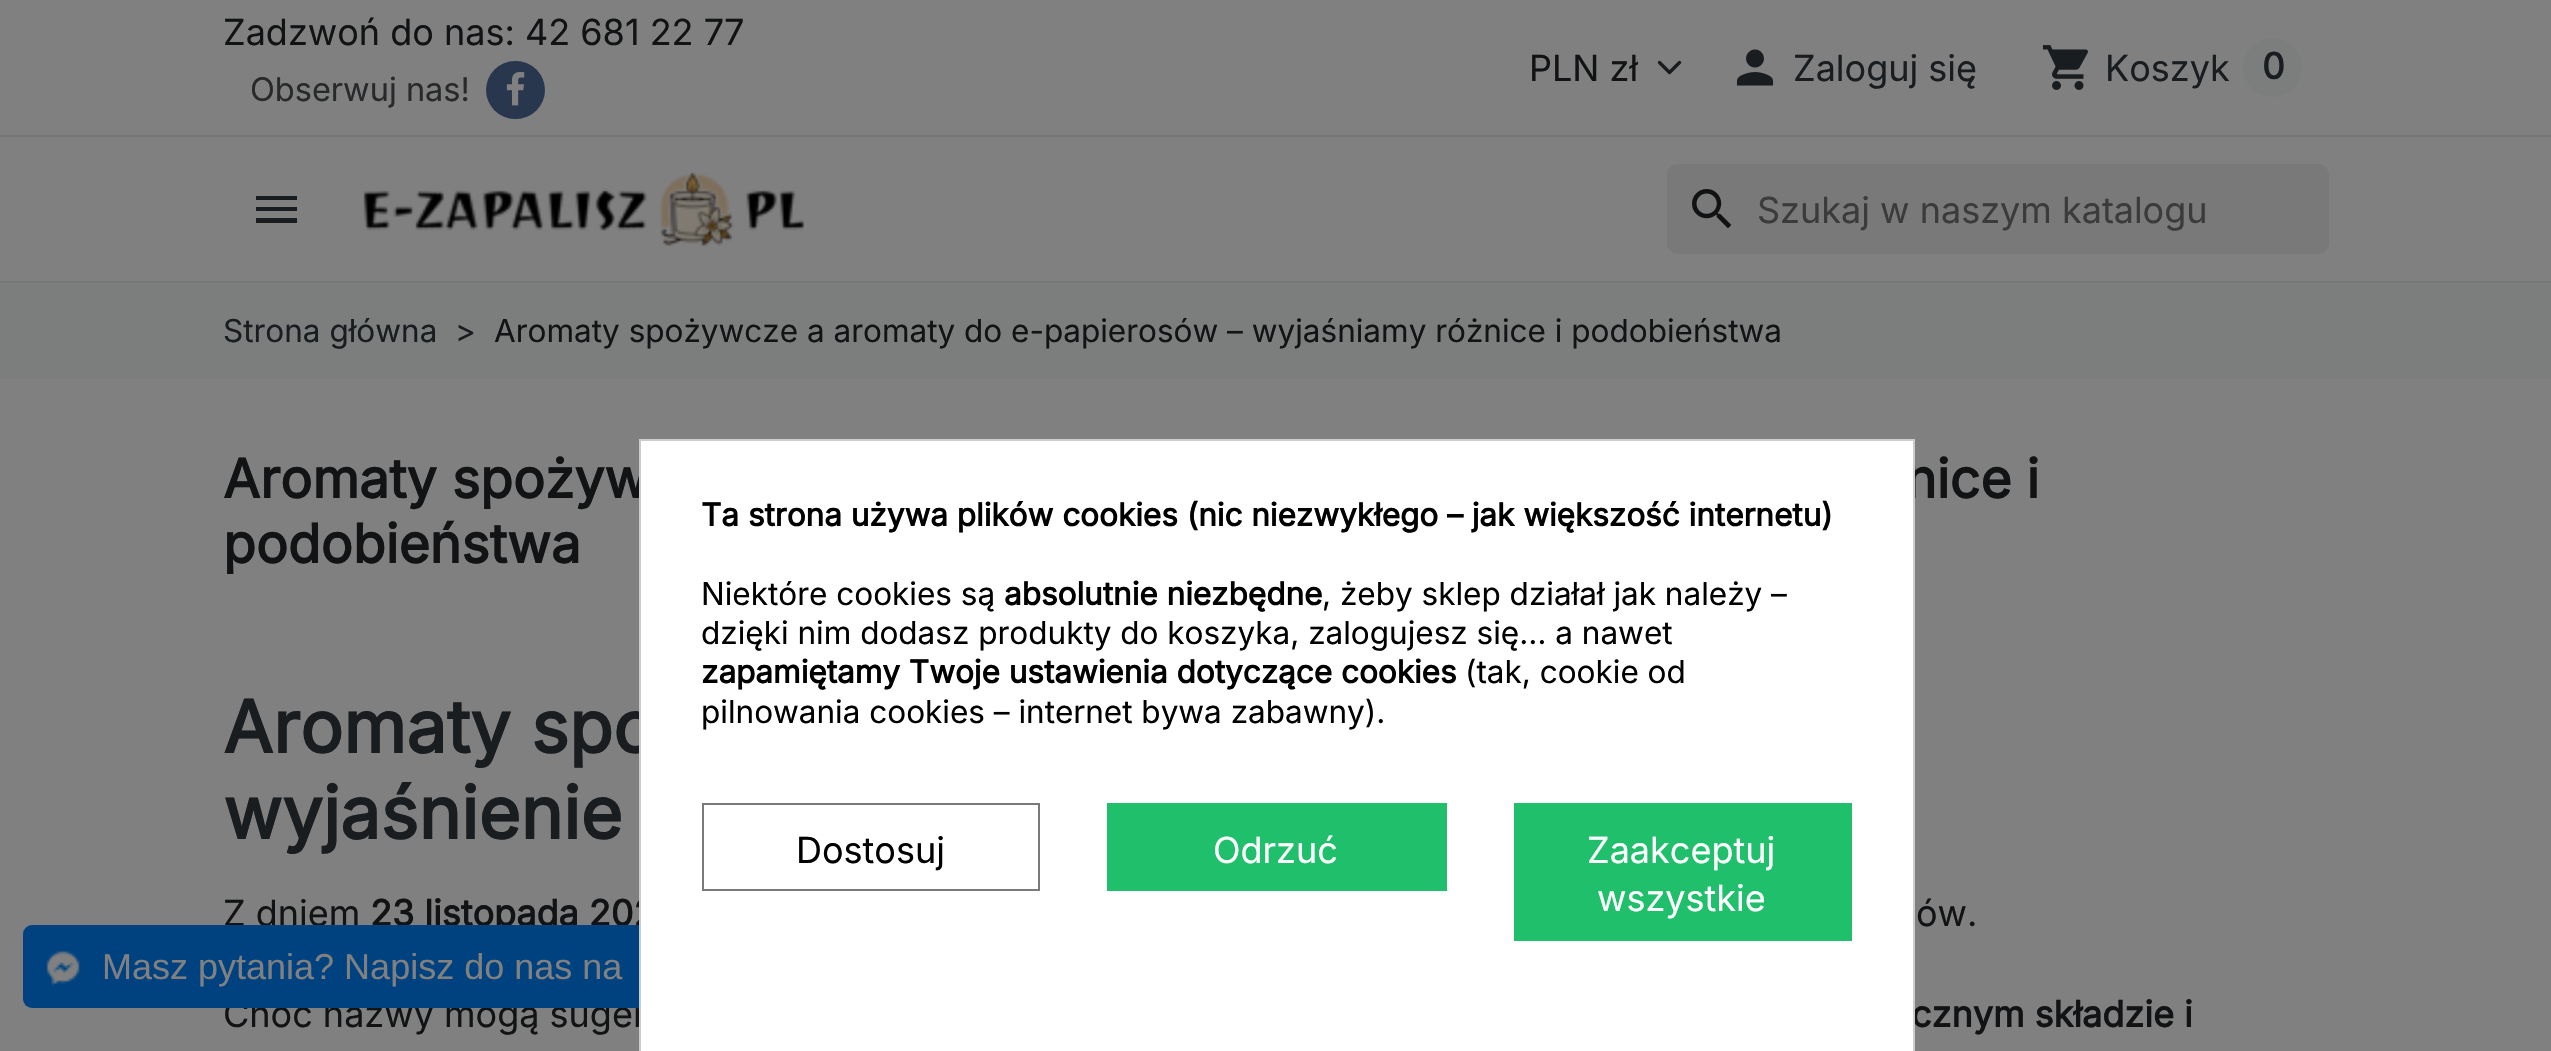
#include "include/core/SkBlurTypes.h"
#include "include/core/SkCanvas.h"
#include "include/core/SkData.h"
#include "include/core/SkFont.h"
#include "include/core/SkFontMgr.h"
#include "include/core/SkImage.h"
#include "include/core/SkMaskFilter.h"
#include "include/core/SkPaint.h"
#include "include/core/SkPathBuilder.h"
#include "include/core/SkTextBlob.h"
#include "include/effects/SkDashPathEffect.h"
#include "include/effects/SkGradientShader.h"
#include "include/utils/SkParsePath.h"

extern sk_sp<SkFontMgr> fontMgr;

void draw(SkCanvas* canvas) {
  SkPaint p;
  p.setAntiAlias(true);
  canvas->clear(SkColorSetRGB(128, 128, 128));
  p.setColor(SkColorSetRGB(117, 118, 120));
  canvas->drawRect(SkRect::MakeLTRB(0, 135, 2551, 137), p);
  p.setColor(SkColorSetRGB(40, 54, 78));
  canvas->drawRoundRect(SkRect::MakeLTRB(486, 61, 545, 119), 29, 29, p);
  canvas->drawImageRect(SkImages::DeferredFromEncodedData(SkData::MakeFromFileName("images/1.png")), SkRect::MakeLTRB(506, 72, 525, 106), SkSamplingOptions());
  p.setStyle(SkPaint::kStroke_Style);
  p.setStrokeWidth(3.4f);
  p.setStrokeCap(SkPaint::kRound_Cap);
  p.setStrokeJoin(SkPaint::kRound_Join);
  p.setColor(SkColorSetRGB(26, 29, 32));
  canvas->drawPath(SkPathBuilder().moveTo(1659.5f, 62.5f).lineTo(1669.5f, 72.5f).lineTo(1679.5f, 62.5f).detach(), p);
  canvas->drawImageRect(SkImages::DeferredFromEncodedData(SkData::MakeFromFileName("images/2.png")), SkRect::MakeLTRB(1736, 49, 1774, 86), SkSamplingOptions());
  canvas->drawImageRect(SkImages::DeferredFromEncodedData(SkData::MakeFromFileName("images/3.png")), SkRect::MakeLTRB(2042, 45, 2088, 90), SkSamplingOptions());
  p.setStyle(SkPaint::kFill_Style);
  p.setColor(SkColorSetRGB(124, 125, 125));
  canvas->drawCircle(2272.5f, 67.5f, 29.5f, p);
  p.setColor(SkColorSetRGB(117, 118, 120));
  canvas->drawRect(SkRect::MakeLTRB(0, 281, 2551, 283), p);
  p.setColor(SkColorSetRGB(26, 29, 32));
  canvas->drawPath(SkPathBuilder().moveTo(256, 196).lineTo(297, 196).lineTo(297, 200).lineTo(256, 200).close().moveTo(256, 211).lineTo(256, 207).lineTo(297, 207).lineTo(297, 211).close().moveTo(256, 223).lineTo(256, 218).lineTo(297, 218).lineTo(297, 223).close().detach(), p);
  canvas->drawImageRect(SkImages::DeferredFromEncodedData(SkData::MakeFromFileName("images/4.png")), SkRect::MakeLTRB(363, 172, 805, 247), SkSamplingOptions());
  p.setColor(SkColorSetRGB(121, 121, 121));
  canvas->drawRoundRect(SkRect::MakeLTRB(1667, 164, 2329, 254), 11, 11, p);
  canvas->drawImageRect(SkImages::DeferredFromEncodedData(SkData::MakeFromFileName("images/5.png")), SkRect::MakeLTRB(1692, 189, 1732, 229), SkSamplingOptions());
  p.setColor(SkColorSetRGB(124, 125, 125));
  canvas->drawRect(SkRect::MakeLTRB(0, 284, 2551, 378), p);
  SkFont font1(fontMgr->matchFamilyStyle("Inter", SkFontStyle::Normal()), 36);
  font1.setSubpixel(true);
  p.setColor(SkColorSetRGB(17, 19, 21));
  canvas->drawString("Zadzwoń do nas: 42 681 22 77", 223, 45, font1, p);
  SkFont font2(fontMgr->matchFamilyStyle("Inter", SkFontStyle::Normal()), 32.5f);
  font2.setSubpixel(true);
  p.setColor(SkColorSetRGB(39, 41, 42));
  canvas->drawString("Obserwuj nas!", 250, 101, font2, p);
  canvas->save();
  canvas->clipRect(SkRect::MakeLTRB(1528, 41, 1638, 95));
  p.setColor(SkColorSetRGB(17, 19, 21));
  canvas->drawString("PLN zł", 1529, 81, font1, p);
  canvas->restore();
  p.setColor(SkColorSetRGB(26, 29, 32));
  canvas->drawString("Zaloguj się", 1793, 81, font1, p);
  canvas->drawString("Koszyk", 2105, 81, font1, p);
  SkFont font3(fontMgr->matchFamilyStyle("Inter", SkFontStyle::Bold()), 36);
  font3.setSubpixel(true);
  canvas->drawString("0", 2262, 79, font3, p);
  p.setColor(SkColorSetRGB(59, 59, 59));
  canvas->drawString("Szukaj w naszym katalogu", 1757, 223, font1, p);
  SkFont font4(fontMgr->matchFamilyStyle("Inter", SkFontStyle::Normal()), 31.5f);
  font4.setSubpixel(true);
  p.setColor(SkColorSetRGB(26, 29, 32));
  canvas->drawString("Strona główna", 223, 342, font4, p);
  canvas->drawString(">", 455, 342, font4, p);
  p.setColor(SkColorSetRGB(17, 19, 21));
  canvas->drawString("Aromaty spożywcze a aromaty do e-papierosów – wyjaśniamy różnice i podobieństwa", 494, 342, font4, p);
  SkFont font5(fontMgr->matchFamilyStyle("Inter", SkFontStyle::Bold()), 53.5f);
  font5.setSubpixel(true);
  canvas->drawString("Aromaty spożyw", 223, 498, font5, p);
  canvas->drawString("nice i", 1905, 498, font5, p);
  canvas->drawString("podobieństwa", 223, 563, font5, p);
  SkFont font6(fontMgr->matchFamilyStyle("Inter", SkFontStyle::Bold()), 72);
  font6.setSubpixel(true);
  p.setColor(SkColorSetRGB(26, 29, 32));
  canvas->drawString("Aromaty spo", 223, 753, font6, p);
  canvas->drawString("wyjaśnienie", 223, 839, font6, p);
  p.setColor(SkColorSetRGB(17, 19, 21));
  canvas->drawString("Z dniem", 223, 926, font1, p);
  canvas->drawString("23 listopada 202", 370, 926, font3, p);
  canvas->drawString("ów.", 1916, 926, font1, p);
  canvas->drawString("Choć nazwy mogą suger", 223, 1027, font1, p);
  canvas->drawString("cznym składzie i", 1911, 1027, font3, p);
  p.setColor(SkColorSetRGB(0, 66, 128));
  canvas->drawRoundRect(SkRect::MakeLTRB(23, 925, 882, 1008), 9, 9, p);
  p.setColor(SK_ColorWHITE);
  canvas->drawRect(SkRect::MakeLTRB(640, 440, 1914, 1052), p);
  p.setStyle(SkPaint::kStroke_Style);
  p.setStrokeWidth(2);
  p.setStrokeCap(SkPaint::kButt_Cap);
  p.setStrokeJoin(SkPaint::kMiter_Join);
  p.setColor(SkColorSetRGB(204, 204, 204));
  canvas->drawRect(SkRect::MakeLTRB(640, 440, 1914, 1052), p);
  p.setStyle(SkPaint::kFill_Style);
  p.setColor(SkColorSetRGB(32, 191, 107));
  canvas->drawRect(SkRect::MakeLTRB(1514, 803, 1852, 941), p);
  p.setColor(SK_ColorWHITE);
  canvas->drawString("wszystkie", 1597, 911, font1, p);
  canvas->drawString("Zaakceptuj", 1587, 863, font1, p);
  p.setColor(SkColorSetRGB(32, 191, 107));
  canvas->drawRect(SkRect::MakeLTRB(1107, 803, 1447, 891), p);
  p.setColor(SK_ColorWHITE);
  canvas->drawString("Odrzuć", 1213, 863, font1, p);
  p.setStyle(SkPaint::kStroke_Style);
  p.setColor(SkColorSetRGB(122, 122, 122));
  canvas->drawRect(SkRect::MakeLTRB(703, 804, 1039, 890), p);
  p.setStyle(SkPaint::kFill_Style);
  p.setColor(SK_ColorBLACK);
  canvas->drawString("Dostosuj", 796, 863, font1, p);
  canvas->drawString("pilnowania cookies – internet bywa zabawny).", 701, 723, font4, p);
  canvas->drawString("(tak, cookie od", 1465, 683, font4, p);
  SkFont font7(fontMgr->matchFamilyStyle("Inter", SkFontStyle::Bold()), 31.5f);
  font7.setSubpixel(true);
  canvas->drawString("zapamiętamy Twoje ustawienia dotyczące cookies", 701, 683, font7, p);
  canvas->drawString("dzięki nim dodasz produkty do koszyka, zalogujesz się… a nawet", 701, 644, font4, p);
  canvas->drawString(", żeby sklep działał jak należy –", 1322, 605, font4, p);
  canvas->drawString("absolutnie niezbędne", 1004, 605, font7, p);
  canvas->drawString("Niektóre cookies są", 701, 605, font4, p);
  canvas->drawString("Ta strona używa plików cookies (nic niezwykłego – jak większość internetu)", 701, 526, font7, p);
  canvas->drawImageRect(SkImages::DeferredFromEncodedData(SkData::MakeFromFileName("images/6.png")), SkRect::MakeLTRB(46, 951, 80, 986), SkSamplingOptions());
  SkFont font8(fontMgr->matchFamilyStyle("Liberation Sans", SkFontStyle::Normal()), 36);
  font8.setSubpixel(true);
  p.setColor(SkColorSetRGB(128, 128, 128));
  canvas->drawString("Masz pytania? Napisz do nas na", 102, 979, font8, p);
}
